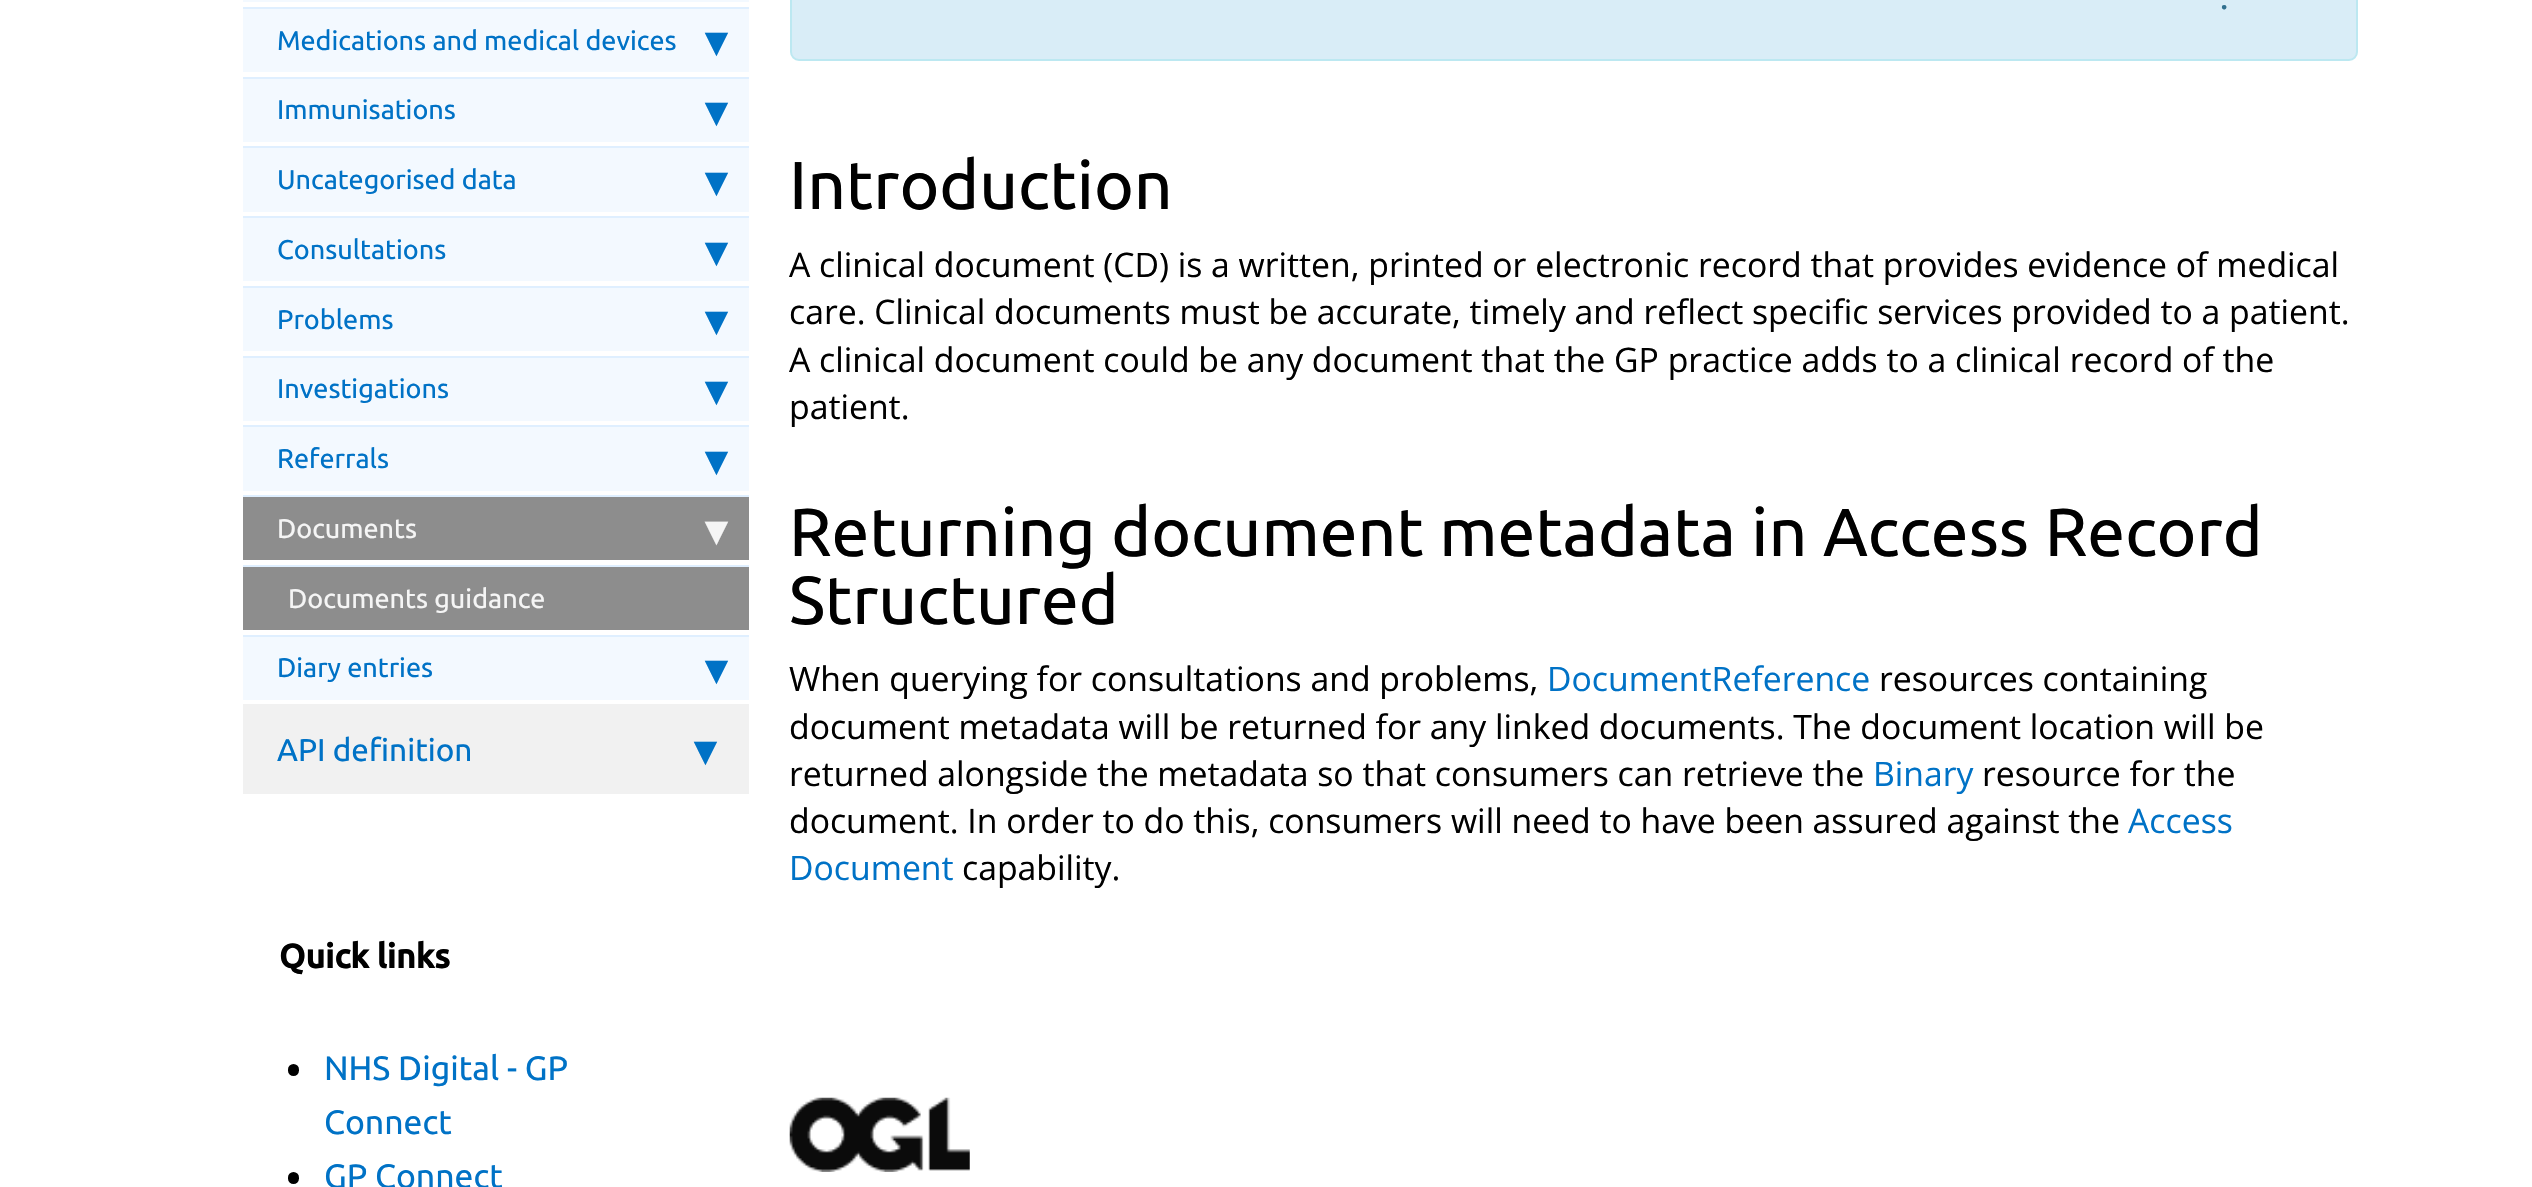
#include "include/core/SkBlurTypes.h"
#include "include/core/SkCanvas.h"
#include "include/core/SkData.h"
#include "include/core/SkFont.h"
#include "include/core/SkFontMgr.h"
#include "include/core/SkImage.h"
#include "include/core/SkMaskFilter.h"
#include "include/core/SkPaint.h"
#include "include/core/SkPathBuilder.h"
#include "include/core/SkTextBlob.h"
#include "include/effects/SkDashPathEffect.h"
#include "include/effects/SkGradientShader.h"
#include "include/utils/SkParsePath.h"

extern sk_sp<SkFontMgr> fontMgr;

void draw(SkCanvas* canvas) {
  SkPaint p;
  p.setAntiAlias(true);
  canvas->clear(SK_ColorWHITE);
  p.setColor(SkColorSetRGB(243, 249, 255));
  canvas->drawRect(SkRect::MakeLTRB(243, 0, 749, 2), p);
  canvas->drawRect(SkRect::MakeLTRB(243, 9, 749, 72), p);
  p.setColor(SkColorSetRGB(223, 239, 255));
  canvas->drawRect(SkRect::MakeLTRB(243, 7, 749, 9), p);
  p.setColor(SkColorSetRGB(243, 249, 255));
  canvas->drawRect(SkRect::MakeLTRB(243, 79, 749, 142), p);
  p.setColor(SkColorSetRGB(223, 239, 255));
  canvas->drawRect(SkRect::MakeLTRB(243, 77, 749, 79), p);
  p.setColor(SkColorSetRGB(243, 249, 255));
  canvas->drawRect(SkRect::MakeLTRB(243, 148, 749, 212), p);
  p.setColor(SkColorSetRGB(223, 239, 255));
  canvas->drawRect(SkRect::MakeLTRB(243, 146, 749, 148), p);
  p.setColor(SkColorSetRGB(243, 249, 255));
  canvas->drawRect(SkRect::MakeLTRB(243, 218, 749, 281), p);
  p.setColor(SkColorSetRGB(223, 239, 255));
  canvas->drawRect(SkRect::MakeLTRB(243, 216, 749, 218), p);
  p.setColor(SkColorSetRGB(243, 249, 255));
  canvas->drawRect(SkRect::MakeLTRB(243, 288, 749, 351), p);
  p.setColor(SkColorSetRGB(223, 239, 255));
  canvas->drawRect(SkRect::MakeLTRB(243, 286, 749, 288), p);
  p.setColor(SkColorSetRGB(243, 249, 255));
  canvas->drawRect(SkRect::MakeLTRB(243, 358, 749, 421), p);
  p.setColor(SkColorSetRGB(223, 239, 255));
  canvas->drawRect(SkRect::MakeLTRB(243, 356, 749, 358), p);
  p.setColor(SkColorSetRGB(243, 249, 255));
  canvas->drawRect(SkRect::MakeLTRB(243, 427, 749, 491), p);
  p.setColor(SkColorSetRGB(223, 239, 255));
  canvas->drawRect(SkRect::MakeLTRB(243, 425, 749, 427), p);
  p.setColor(SkColorSetRGB(141, 141, 141));
  canvas->drawRect(SkRect::MakeLTRB(243, 497, 749, 560), p);
  p.setColor(SkColorSetRGB(223, 239, 255));
  canvas->drawRect(SkRect::MakeLTRB(243, 495, 749, 497), p);
  p.setColor(SkColorSetRGB(141, 141, 141));
  canvas->drawRect(SkRect::MakeLTRB(243, 567, 749, 630), p);
  p.setColor(SkColorSetRGB(223, 239, 255));
  canvas->drawRect(SkRect::MakeLTRB(243, 565, 749, 567), p);
  p.setColor(SkColorSetRGB(243, 249, 255));
  canvas->drawRect(SkRect::MakeLTRB(243, 637, 749, 700), p);
  p.setColor(SkColorSetRGB(223, 239, 255));
  canvas->drawRect(SkRect::MakeLTRB(243, 635, 749, 637), p);
  p.setColor(SkColorSetRGB(241, 241, 241));
  canvas->drawRect(SkRect::MakeLTRB(243, 704, 749, 794), p);
  p.setColor(SK_ColorBLACK);
  canvas->drawRoundRect(SkRect::MakeLTRB(288, 1064, 299, 1076), 5.5f, 5.5f, p);
  canvas->drawRoundRect(SkRect::MakeLTRB(288, 1172, 299, 1184), 5.5f, 5.5f, p);
  p.setColor(SkColorSetRGB(217, 237, 247));
  canvas->drawRoundRect(SkRect::MakeLTRB(791, -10, 2357, 60), 8, 8, p);
  p.setStyle(SkPaint::kStroke_Style);
  p.setStrokeWidth(2);
  p.setColor(SkColorSetRGB(188, 232, 241));
  canvas->drawRoundRect(SkRect::MakeLTRB(791, -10, 2357, 60), 8, 8, p);
  canvas->drawImageRect(SkImages::DeferredFromEncodedData(SkData::MakeFromFileName("images/1.png")), SkRect::MakeLTRB(789, 1097, 970, 1172), SkSamplingOptions());
  SkFont font1(fontMgr->matchFamilyStyle("Ubuntu", SkFontStyle::Normal()), 27);
  font1.setSubpixel(true);
  p.setStyle(SkPaint::kFill_Style);
  p.setColor(SkColorSetRGB(0, 114, 198));
  canvas->drawString("Medications and medical devices", 277, 50, font1, p);
  SkFont font2(fontMgr->matchFamilyStyle("DejaVu Sans", SkFontStyle::Bold()), 43);
  font2.setSubpixel(true);
  canvas->drawString("▾", 705, 56, font2, p);
  canvas->drawString("Immunisations", 277, 119, font1, p);
  canvas->drawString("▾", 705, 126, font2, p);
  canvas->drawString("Uncategorised data", 277, 189, font1, p);
  canvas->drawString("▾", 705, 196, font2, p);
  canvas->drawString("Consultations", 277, 259, font1, p);
  canvas->drawString("▾", 705, 266, font2, p);
  canvas->drawString("Problems", 277, 329, font1, p);
  canvas->drawString("▾", 705, 335, font2, p);
  canvas->drawString("Investigations", 277, 398, font1, p);
  canvas->drawString("▾", 705, 405, font2, p);
  canvas->drawString("Referrals", 277, 468, font1, p);
  canvas->drawString("▾", 705, 475, font2, p);
  p.setColor(SkColorSetRGB(245, 245, 245));
  canvas->drawString("Documents", 277, 538, font1, p);
  canvas->drawString("▾", 705, 545, font2, p);
  canvas->drawString("Documents guidance", 288, 608, font1, p);
  p.setColor(SkColorSetRGB(0, 114, 198));
  canvas->drawString("Diary entries", 277, 677, font1, p);
  canvas->drawString("▾", 705, 684, font2, p);
  SkFont font3(fontMgr->matchFamilyStyle("Ubuntu", SkFontStyle::Normal()), 31.5f);
  font3.setSubpixel(true);
  canvas->drawString("API definition", 277, 761, font3, p);
  canvas->drawString("▾", 694, 765, font2, p);
  SkFont font4(fontMgr->matchFamilyStyle("Ubuntu", SkFontStyle::Bold()), 33.75f);
  font4.setSubpixel(true);
  p.setColor(SK_ColorBLACK);
  canvas->drawString("Quick links", 279, 968, font4, p);
  SkFont font5(fontMgr->matchFamilyStyle("Ubuntu", SkFontStyle::Normal()), 33.75f);
  font5.setSubpixel(true);
  p.setColor(SkColorSetRGB(0, 114, 198));
  canvas->drawString("NHS Digital - GP", 324, 1080, font5, p);
  canvas->drawString("Connect", 324, 1134, font5, p);
  canvas->drawString("GP Connect", 324, 1188, font5, p);
  p.setColor(SkColorSetRGB(49, 112, 143));
  canvas->drawString(".", 2220, 9, font5, p);
  SkFont font6(fontMgr->matchFamilyStyle("Ubuntu", SkFontStyle::Normal()), 67.7f);
  font6.setSubpixel(true);
  p.setColor(SK_ColorBLACK);
  canvas->drawString("Introduction", 789, 209, font6, p);
  SkFont font7(fontMgr->matchFamilyStyle("Open Sans", SkFontStyle::Normal()), 33.75f);
  font7.setSubpixel(true);
  canvas->drawString("A clinical document (CD) is a written, printed or electronic record that provides evidence of medical", 789, 277, font7, p);
  canvas->drawString("care. Clinical documents must be accurate, timely and reflect specific services provided to a patient.", 789, 324, font7, p);
  canvas->drawString("A clinical document could be any document that the GP practice adds to a clinical record of the", 789, 372, font7, p);
  canvas->drawString("patient.", 789, 419, font7, p);
  canvas->drawString("Returning document metadata in Access Record", 789, 556, font6, p);
  canvas->drawString("Structured", 789, 624, font6, p);
  canvas->drawString("When querying for consultations and problems,", 789, 691, font7, p);
  p.setColor(SkColorSetRGB(0, 114, 198));
  canvas->drawString("DocumentReference", 1547, 691, font7, p);
  p.setColor(SK_ColorBLACK);
  canvas->drawString("resources containing", 1879, 691, font7, p);
  canvas->drawString("document metadata will be returned for any linked documents. The document location will be", 789, 739, font7, p);
  canvas->drawString("returned alongside the metadata so that consumers can retrieve the", 789, 786, font7, p);
  p.setColor(SkColorSetRGB(0, 114, 198));
  canvas->drawString("Binary", 1873, 786, font7, p);
  p.setColor(SK_ColorBLACK);
  canvas->drawString("resource for the", 1982, 786, font7, p);
  canvas->drawString("document. In order to do this, consumers will need to have been assured against the", 789, 833, font7, p);
  p.setColor(SkColorSetRGB(0, 114, 198));
  canvas->drawString("Access", 2128, 833, font7, p);
  canvas->drawString("Document", 789, 880, font7, p);
  p.setColor(SK_ColorBLACK);
  canvas->drawString("capability.", 962, 880, font7, p);
}
